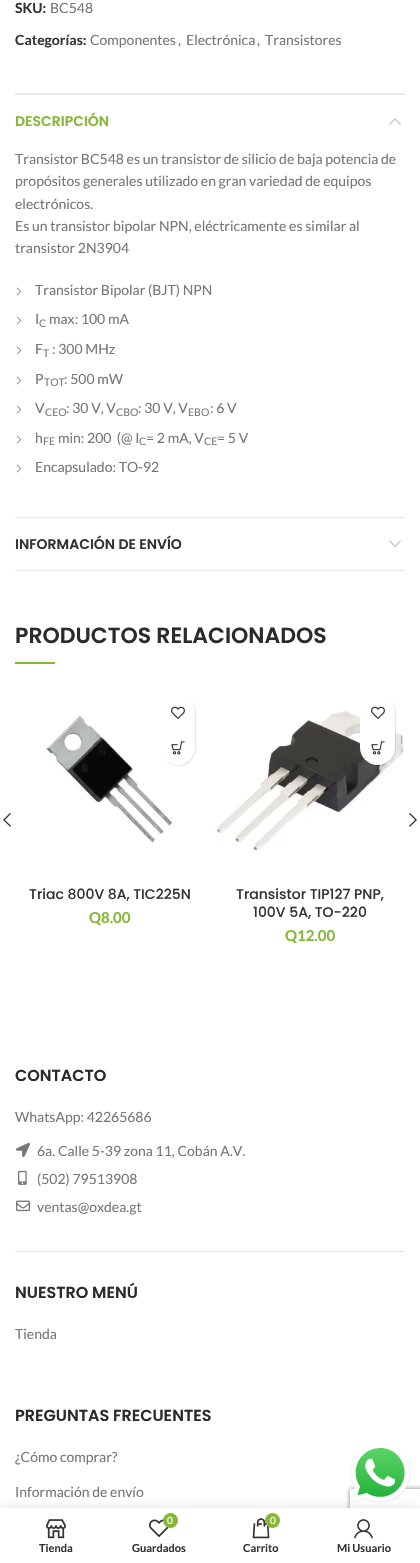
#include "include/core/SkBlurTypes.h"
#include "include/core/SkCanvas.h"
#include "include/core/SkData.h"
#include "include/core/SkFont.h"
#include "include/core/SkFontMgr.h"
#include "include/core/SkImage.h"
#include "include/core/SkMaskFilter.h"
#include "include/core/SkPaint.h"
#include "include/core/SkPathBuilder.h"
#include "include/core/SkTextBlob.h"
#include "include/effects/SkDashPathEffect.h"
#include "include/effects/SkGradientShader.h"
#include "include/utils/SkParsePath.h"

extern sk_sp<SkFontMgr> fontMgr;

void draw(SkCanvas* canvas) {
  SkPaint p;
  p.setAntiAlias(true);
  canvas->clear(SK_ColorWHITE);
  p.setColor(SkColorSetRGB(232, 232, 232));
  canvas->drawRect(SkRect::MakeLTRB(15, 93, 405, 95), p);
  canvas->drawRect(SkRect::MakeLTRB(15, 517, 405, 518), p);
  canvas->drawImageRect(SkImages::DeferredFromEncodedData(SkData::MakeFromFileName("images/1.png")), SkRect::MakeLTRB(389, 118, 401, 125), SkSamplingOptions());
  canvas->drawImageRect(SkImages::DeferredFromEncodedData(SkData::MakeFromFileName("images/2.png")), SkRect::MakeLTRB(16, 287, 22, 296), SkSamplingOptions());
  canvas->drawImageRect(SkImages::DeferredFromEncodedData(SkData::MakeFromFileName("images/2.png")), SkRect::MakeLTRB(16, 316, 22, 325), SkSamplingOptions());
  canvas->drawImageRect(SkImages::DeferredFromEncodedData(SkData::MakeFromFileName("images/2.png")), SkRect::MakeLTRB(16, 346, 22, 355), SkSamplingOptions());
  canvas->drawImageRect(SkImages::DeferredFromEncodedData(SkData::MakeFromFileName("images/2.png")), SkRect::MakeLTRB(16, 376, 22, 385), SkSamplingOptions());
  canvas->drawImageRect(SkImages::DeferredFromEncodedData(SkData::MakeFromFileName("images/2.png")), SkRect::MakeLTRB(16, 405, 22, 414), SkSamplingOptions());
  canvas->drawImageRect(SkImages::DeferredFromEncodedData(SkData::MakeFromFileName("images/2.png")), SkRect::MakeLTRB(16, 435, 22, 444), SkSamplingOptions());
  canvas->drawImageRect(SkImages::DeferredFromEncodedData(SkData::MakeFromFileName("images/2.png")), SkRect::MakeLTRB(16, 464, 22, 473), SkSamplingOptions());
  canvas->drawRect(SkRect::MakeLTRB(15, 570, 405, 571), p);
  canvas->drawImageRect(SkImages::DeferredFromEncodedData(SkData::MakeFromFileName("images/3.png")), SkRect::MakeLTRB(389, 540, 401, 547), SkSamplingOptions());
  p.setColor(SkColorSetRGB(131, 183, 53));
  canvas->drawRect(SkRect::MakeLTRB(15, 662, 55, 664), p);
  canvas->drawImageRect(SkImages::DeferredFromEncodedData(SkData::MakeFromFileName("images/4.png")), SkRect::MakeLTRB(3, 813, 11, 827), SkSamplingOptions());
  canvas->drawImageRect(SkImages::DeferredFromEncodedData(SkData::MakeFromFileName("images/5.png")), SkRect::MakeLTRB(409, 813, 417, 827), SkSamplingOptions());
  canvas->drawImageRect(SkImages::DeferredFromEncodedData(SkData::MakeFromFileName("images/6.png")), SkRect::MakeLTRB(45, 716, 172, 843), SkSamplingOptions());
  p.setColor(SkColorSetARGB(26, 0, 0, 0));
  p.setMaskFilter(SkMaskFilter::MakeBlur(kNormal_SkBlurStyle, 0.5f));
  canvas->drawRoundRect(SkRect::MakeLTRB(161, 696, 196, 766), 17.5f, 17.5f, p);
  p.setMaskFilter(nullptr);
  p.setColor(SK_ColorWHITE);
  canvas->drawRoundRect(SkRect::MakeLTRB(160, 695, 195, 765), 17.5f, 17.5f, p);
  canvas->drawImageRect(SkImages::DeferredFromEncodedData(SkData::MakeFromFileName("images/7.png")), SkRect::MakeLTRB(171, 706, 185, 719), SkSamplingOptions());
  canvas->drawImageRect(SkImages::DeferredFromEncodedData(SkData::MakeFromFileName("images/8.png")), SkRect::MakeLTRB(171, 741, 185, 755), SkSamplingOptions());
  canvas->drawImageRect(SkImages::DeferredFromEncodedData(SkData::MakeFromFileName("images/9.png")), SkRect::MakeLTRB(215, 710, 404, 851), SkSamplingOptions());
  p.setColor(SkColorSetARGB(26, 0, 0, 0));
  p.setMaskFilter(SkMaskFilter::MakeBlur(kNormal_SkBlurStyle, 0.5f));
  canvas->drawRoundRect(SkRect::MakeLTRB(361, 696, 396, 766), 17.5f, 17.5f, p);
  p.setMaskFilter(nullptr);
  p.setColor(SK_ColorWHITE);
  canvas->drawRoundRect(SkRect::MakeLTRB(360, 695, 395, 765), 17.5f, 17.5f, p);
  canvas->drawImageRect(SkImages::DeferredFromEncodedData(SkData::MakeFromFileName("images/7.png")), SkRect::MakeLTRB(371, 706, 385, 719), SkSamplingOptions());
  canvas->drawImageRect(SkImages::DeferredFromEncodedData(SkData::MakeFromFileName("images/8.png")), SkRect::MakeLTRB(371, 741, 385, 755), SkSamplingOptions());
  p.setColor(SkColorSetRGB(230, 230, 230));
  canvas->drawRect(SkRect::MakeLTRB(15, 1251, 405, 1252), p);
  canvas->drawImageRect(SkImages::DeferredFromEncodedData(SkData::MakeFromFileName("images/10.png")), SkRect::MakeLTRB(16, 1142, 30, 1157), SkSamplingOptions());
  canvas->drawImageRect(SkImages::DeferredFromEncodedData(SkData::MakeFromFileName("images/11.png")), SkRect::MakeLTRB(18, 1170, 27, 1185), SkSamplingOptions());
  canvas->drawImageRect(SkImages::DeferredFromEncodedData(SkData::MakeFromFileName("images/12.png")), SkRect::MakeLTRB(16, 1200, 30, 1212), SkSamplingOptions());
  p.setColor(SkColorSetARGB(43, 0, 0, 0));
  p.setMaskFilter(SkMaskFilter::MakeBlur(kNormal_SkBlurStyle, 2.5f));
  canvas->drawRoundRect(SkRect::MakeLTRB(368, 1453, 408, 1493), 20, 20, p);
  p.setMaskFilter(nullptr);
  canvas->save();
  canvas->clipPath(SkPathBuilder(SkPathFillType::kEvenOdd).moveTo(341, 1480).lineTo(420, 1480).lineTo(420, 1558).lineTo(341, 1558).close().moveTo(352, 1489).lineTo(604, 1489).cubicTo(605, 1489, 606, 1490, 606, 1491).lineTo(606, 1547).cubicTo(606, 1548, 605, 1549, 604, 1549).lineTo(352, 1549).cubicTo(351, 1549, 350, 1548, 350, 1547).lineTo(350, 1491).cubicTo(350, 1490, 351, 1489, 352, 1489).close().detach(), true);
  p.setColor(SkColorSetRGB(128, 128, 128));
  p.setMaskFilter(SkMaskFilter::MakeBlur(kNormal_SkBlurStyle, 2.5f));
  canvas->drawRoundRect(SkRect::MakeLTRB(350, 1489, 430, 1549), 2, 2, p);
  p.setMaskFilter(nullptr);
  canvas->restore();
  p.setColor(SkColorSetARGB(31, 0, 0, 0));
  p.setMaskFilter(SkMaskFilter::MakeBlur(kNormal_SkBlurStyle, 4.5f));
  canvas->drawRect(SkRect::MakeLTRB(0, 1508, 420, 1563), p);
  p.setMaskFilter(nullptr);
  canvas->drawImageRect(SkImages::DeferredFromEncodedData(SkData::MakeFromFileName("images/13.png")), SkRect::MakeLTRB(350, 1443, 410, 1503), SkSamplingOptions());
  p.setColor(SK_ColorWHITE);
  canvas->drawRect(SkRect::MakeLTRB(0, 1508, 420, 1563), p);
  canvas->drawImageRect(SkImages::DeferredFromEncodedData(SkData::MakeFromFileName("images/14.png")), SkRect::MakeLTRB(46, 1519, 66, 1539), SkSamplingOptions());
  canvas->drawImageRect(SkImages::DeferredFromEncodedData(SkData::MakeFromFileName("images/15.png")), SkRect::MakeLTRB(149, 1519, 169, 1537), SkSamplingOptions());
  p.setColor(SkColorSetRGB(131, 183, 53));
  canvas->drawCircle(170.5f, 1520.5f, 7.5f, p);
  canvas->drawImageRect(SkImages::DeferredFromEncodedData(SkData::MakeFromFileName("images/16.png")), SkRect::MakeLTRB(252, 1518, 270, 1539), SkSamplingOptions());
  canvas->drawCircle(272.5f, 1520.5f, 7.5f, p);
  canvas->drawImageRect(SkImages::DeferredFromEncodedData(SkData::MakeFromFileName("images/17.png")), SkRect::MakeLTRB(354, 1519, 373, 1539), SkSamplingOptions());
  SkFont font1(fontMgr->matchFamilyStyle("Lato", SkFontStyle::Bold()), 14);
  font1.setSubpixel(true);
  p.setColor(SkColorSetRGB(51, 51, 51));
  canvas->drawString("SKU:", 15, 13, font1, p);
  SkFont font2(fontMgr->matchFamilyStyle("Lato", SkFontStyle::Normal()), 14);
  font2.setSubpixel(true);
  p.setColor(SkColorSetRGB(119, 119, 119));
  canvas->drawString("BC548", 50, 13, font2, p);
  p.setColor(SkColorSetRGB(51, 51, 51));
  canvas->drawString("Categorías:", 15, 45, font1, p);
  p.setColor(SkColorSetRGB(119, 119, 119));
  canvas->drawString("Componentes", 90, 45, font2, p);
  canvas->drawString(",", 178, 45, font2, p);
  canvas->drawString("Electrónica", 186, 45, font2, p);
  canvas->drawString(",", 257, 45, font2, p);
  canvas->drawString("Transistores", 265, 45, font2, p);
  SkFont font3(fontMgr->matchFamilyStyle("Poppins", SkFontStyle(600, SkFontStyle::kNormal_Width, SkFontStyle::kUpright_Slant)), 14);
  font3.setSubpixel(true);
  p.setColor(SkColorSetRGB(131, 183, 53));
  canvas->drawString("DESCRIPCIÓN", 15, 126, font3, p);
  p.setColor(SkColorSetRGB(119, 119, 119));
  canvas->drawString("Transistor BC548 es un transistor de silicio de baja potencia de", 15, 164, font2, p);
  canvas->drawString("propósitos generales utilizado en gran variedad de equipos", 15, 186, font2, p);
  canvas->drawString("electrónicos.", 15, 209, font2, p);
  canvas->drawString("Es un transistor bipolar NPN, eléctricamente es similar al", 15, 231, font2, p);
  canvas->drawString("transistor 2N3904", 15, 253, font2, p);
  canvas->drawString("Transistor Bipolar (BJT) NPN", 35, 295, font2, p);
  canvas->drawString("I", 35, 324, font2, p);
  SkFont font4(fontMgr->matchFamilyStyle("Lato", SkFontStyle::Normal()), 10.5f);
  font4.setSubpixel(true);
  canvas->drawString("C", 39, 327, font4, p);
  canvas->drawString("max: 100 mA", 49, 324, font2, p);
  canvas->drawString("F", 35, 354, font2, p);
  canvas->drawString("T", 43, 357, font4, p);
  canvas->drawString(": 300 MHz", 52, 354, font2, p);
  canvas->drawString("P", 35, 384, font2, p);
  canvas->drawString("TOT", 44, 386, font4, p);
  canvas->drawString(": 500 mW", 64, 384, font2, p);
  canvas->drawString("V", 35, 413, font2, p);
  canvas->drawString("CEO", 45, 416, font4, p);
  canvas->drawString(": 30 V, V", 66, 413, font2, p);
  canvas->drawString("CBO", 116, 416, font4, p);
  canvas->drawString(": 30 V, V", 138, 413, font2, p);
  canvas->drawString("EBO", 188, 416, font4, p);
  canvas->drawString(": 6 V", 210, 413, font2, p);
  canvas->drawString("h", 35, 443, font2, p);
  canvas->drawString("FE", 43, 445, font4, p);
  canvas->drawString("min: 200  (@ I", 58, 443, font2, p);
  canvas->drawString("C", 139, 445, font4, p);
  canvas->drawString("= 2 mA, V", 146, 443, font2, p);
  canvas->drawString("CE", 204, 445, font4, p);
  canvas->drawString("= 5 V", 217, 443, font2, p);
  canvas->drawString("Encapsulado: TO-92", 35, 472, font2, p);
  p.setColor(SkColorSetRGB(51, 51, 51));
  canvas->drawString("INFORMACIÓN DE ENVÍO", 15, 549, font3, p);
  SkFont font5(fontMgr->matchFamilyStyle("Poppins", SkFontStyle(600, SkFontStyle::kNormal_Width, SkFontStyle::kUpright_Slant)), 22);
  font5.setSubpixel(true);
  p.setColor(SkColorSetRGB(45, 42, 42));
  canvas->drawString("PRODUCTOS RELACIONADOS", 15, 643, font5, p);
  SkFont font6(fontMgr->matchFamilyStyle("Poppins", SkFontStyle(500, SkFontStyle::kNormal_Width, SkFontStyle::kUpright_Slant)), 14);
  font6.setSubpixel(true);
  p.setColor(SkColorSetRGB(51, 51, 51));
  canvas->drawString("Triac 800V 8A, TIC225N", 29, 899, font6, p);
  SkFont font7(fontMgr->matchFamilyStyle("Lato", SkFontStyle::Bold()), 15);
  font7.setSubpixel(true);
  p.setColor(SkColorSetRGB(131, 183, 53));
  canvas->drawString("Q8.00", 89, 923, font7, p);
  p.setColor(SkColorSetRGB(51, 51, 51));
  canvas->drawString("Transistor TIP127 PNP,", 236, 899, font6, p);
  canvas->drawString("100V 5A, TO-220", 253, 917, font6, p);
  p.setColor(SkColorSetRGB(131, 183, 53));
  canvas->drawString("Q12.00", 285, 941, font7, p);
  SkFont font8(fontMgr->matchFamilyStyle("Poppins", SkFontStyle(600, SkFontStyle::kNormal_Width, SkFontStyle::kUpright_Slant)), 16);
  font8.setSubpixel(true);
  p.setColor(SkColorSetRGB(45, 42, 42));
  canvas->drawString("CONTACTO", 15, 1081, font8, p);
  p.setColor(SkColorSetRGB(119, 119, 119));
  canvas->drawString("WhatsApp: 42265686", 15, 1122, font2, p);
  canvas->drawString("6a. Calle 5-39 zona 11, Cobán A.V.", 37, 1156, font2, p);
  canvas->drawString("(502) 79513908", 37, 1184, font2, p);
  canvas->drawString("ventas@oxdea.gt", 37, 1212, font2, p);
  p.setColor(SkColorSetRGB(45, 42, 42));
  canvas->drawString("NUESTRO MENÚ", 15, 1298, font8, p);
  p.setColor(SkColorSetRGB(119, 119, 119));
  canvas->drawString("Tienda", 15, 1339, font2, p);
  p.setColor(SkColorSetRGB(45, 42, 42));
  canvas->drawString("PREGUNTAS FRECUENTES", 15, 1421, font8, p);
  p.setColor(SkColorSetRGB(119, 119, 119));
  canvas->drawString("¿Cómo comprar?", 15, 1462, font2, p);
  canvas->drawString("Información de envío", 15, 1497, font2, p);
  SkFont font9(fontMgr->matchFamilyStyle("Lato", SkFontStyle::Bold()), 11);
  font9.setSubpixel(true);
  p.setColor(SkColorSetRGB(51, 51, 51));
  canvas->drawString("Tienda", 39, 1552, font9, p);
  SkFont font10(fontMgr->matchFamilyStyle("Lato", SkFontStyle::Normal()), 10);
  font10.setSubpixel(true);
  p.setColor(SK_ColorWHITE);
  canvas->drawString("0", 167, 1524, font10, p);
  p.setColor(SkColorSetRGB(51, 51, 51));
  canvas->drawString("Guardados", 132, 1552, font9, p);
  p.setColor(SK_ColorWHITE);
  canvas->drawString("0", 270, 1524, font10, p);
  p.setColor(SkColorSetRGB(51, 51, 51));
  canvas->drawString("Carrito", 243, 1552, font9, p);
  canvas->drawString("Mi Usuario", 337, 1552, font9, p);
}
